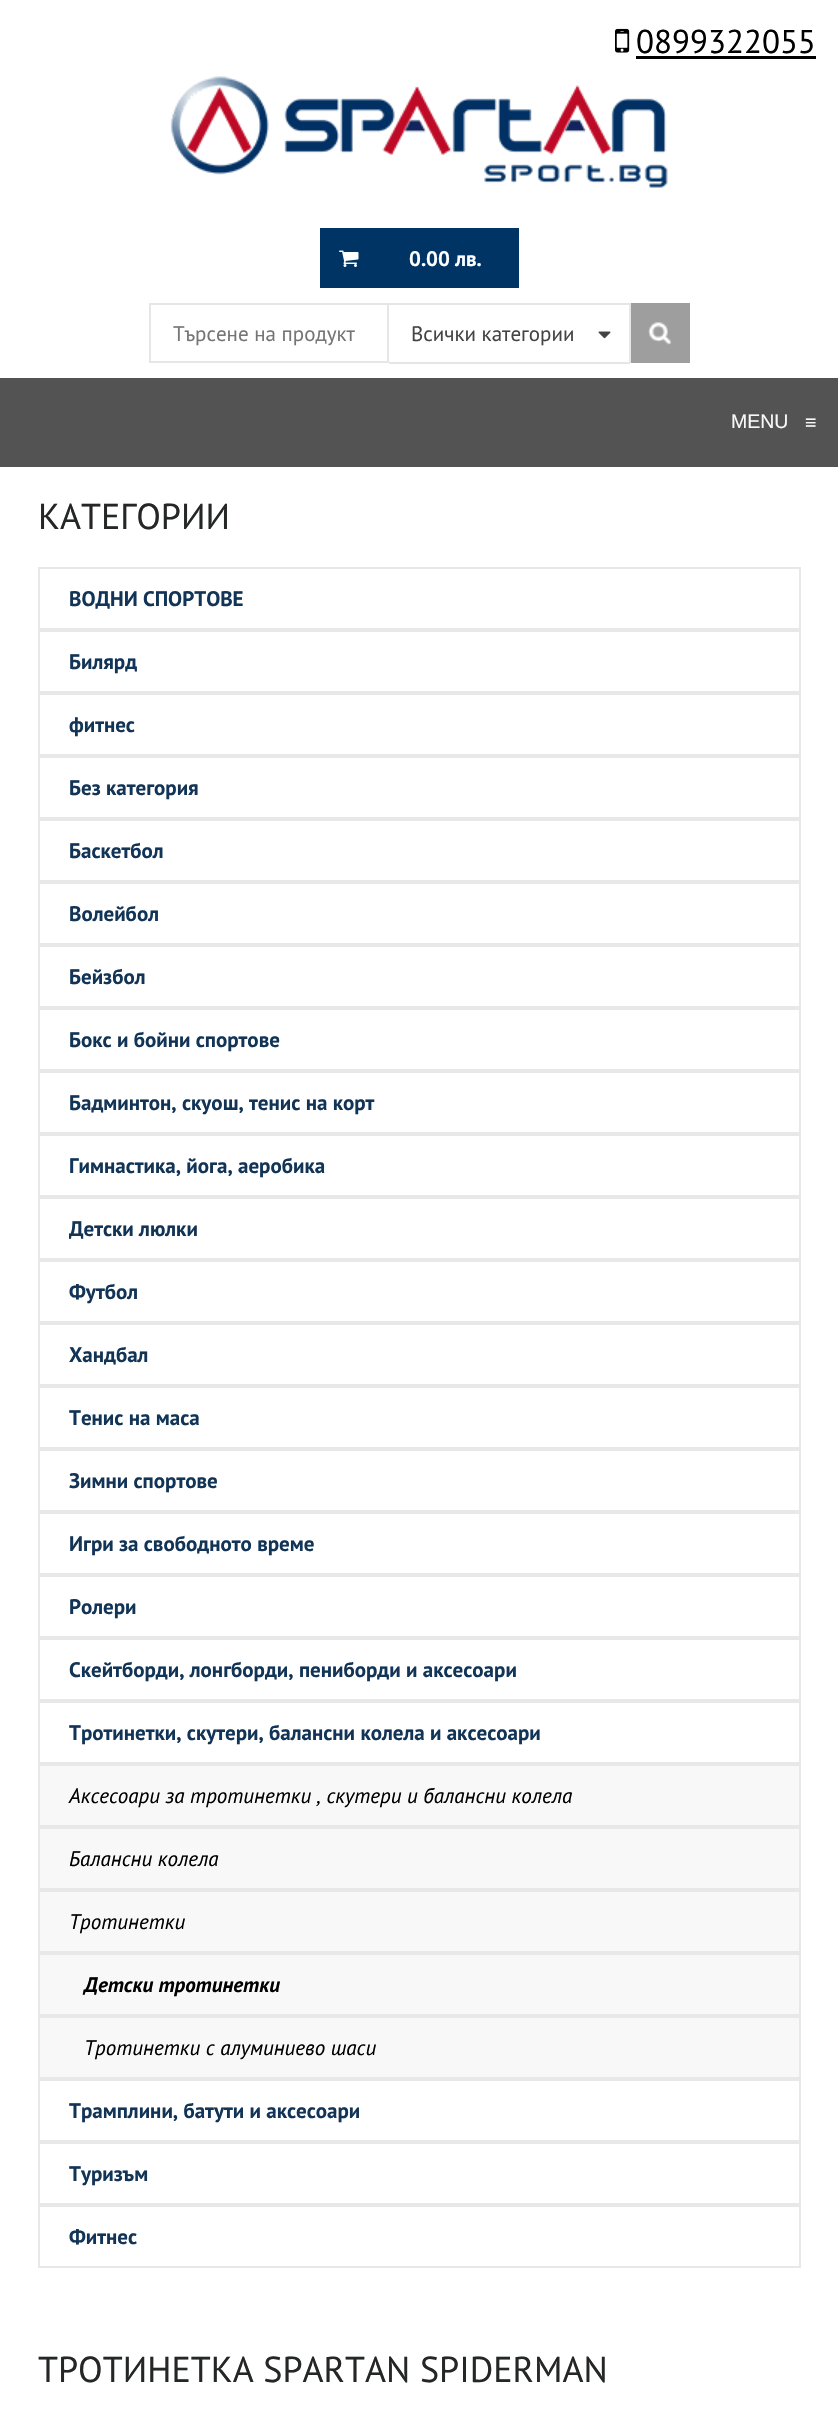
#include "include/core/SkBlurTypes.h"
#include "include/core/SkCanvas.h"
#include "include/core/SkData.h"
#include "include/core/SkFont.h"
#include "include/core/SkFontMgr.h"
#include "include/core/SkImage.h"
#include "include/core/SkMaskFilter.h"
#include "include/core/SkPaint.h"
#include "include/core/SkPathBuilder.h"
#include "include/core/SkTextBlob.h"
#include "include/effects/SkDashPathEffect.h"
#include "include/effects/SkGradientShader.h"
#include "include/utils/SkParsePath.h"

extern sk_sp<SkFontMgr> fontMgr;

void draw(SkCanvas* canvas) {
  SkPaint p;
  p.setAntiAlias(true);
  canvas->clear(SK_ColorWHITE);
  canvas->drawImageRect(SkImages::DeferredFromEncodedData(SkData::MakeFromFileName("images/1.png")), SkRect::MakeLTRB(615, 28, 630, 53), SkSamplingOptions());
  p.setColor(SK_ColorBLACK);
  canvas->drawRect(SkRect::MakeLTRB(636, 56, 816, 59), p);
  canvas->drawImageRect(SkImages::DeferredFromEncodedData(SkData::MakeFromFileName("images/2.png")), SkRect::MakeLTRB(170, 76, 668, 188), SkSamplingOptions());
  p.setColor(SkColorSetRGB(0, 52, 100));
  canvas->drawRect(SkRect::MakeLTRB(320, 228, 519, 288), p);
  canvas->drawImageRect(SkImages::DeferredFromEncodedData(SkData::MakeFromFileName("images/3.png")), SkRect::MakeLTRB(339, 250, 359, 267), SkSamplingOptions());
  p.setStyle(SkPaint::kStroke_Style);
  p.setStrokeWidth(2);
  p.setColor(SkColorSetRGB(232, 229, 229));
  canvas->drawRect(SkRect::MakeLTRB(150, 304, 388, 362), p);
  p.setStyle(SkPaint::kFill_Style);
  canvas->drawRect(SkRect::MakeLTRB(389, 303, 630, 305), p);
  canvas->drawRect(SkRect::MakeLTRB(629, 303, 631, 363), p);
  canvas->drawRect(SkRect::MakeLTRB(389, 362, 630, 364), p);
  canvas->drawImageRect(SkImages::DeferredFromEncodedData(SkData::MakeFromFileName("images/4.png")), SkRect::MakeLTRB(598, 331, 611, 339), SkSamplingOptions());
  p.setColor(SkColorSetRGB(158, 158, 158));
  canvas->drawRect(SkRect::MakeLTRB(631, 303, 690, 363), p);
  canvas->drawImageRect(SkImages::DeferredFromEncodedData(SkData::MakeFromFileName("images/5.png")), SkRect::MakeLTRB(648, 322, 672, 345), SkSamplingOptions());
  p.setColor(SkColorSetRGB(83, 83, 83));
  canvas->drawRect(SkRect::MakeLTRB(0, 378, 838, 467), p);
  p.setStyle(SkPaint::kStroke_Style);
  p.setColor(SkColorSetRGB(232, 232, 232));
  canvas->drawRect(SkRect::MakeLTRB(39, 568, 800, 629), p);
  canvas->drawRect(SkRect::MakeLTRB(39, 631, 800, 692), p);
  canvas->drawRect(SkRect::MakeLTRB(39, 694, 800, 755), p);
  canvas->drawRect(SkRect::MakeLTRB(39, 757, 800, 818), p);
  canvas->drawRect(SkRect::MakeLTRB(39, 820, 800, 881), p);
  canvas->drawRect(SkRect::MakeLTRB(39, 883, 800, 944), p);
  canvas->drawRect(SkRect::MakeLTRB(39, 946, 800, 1007), p);
  canvas->drawRect(SkRect::MakeLTRB(39, 1009, 800, 1070), p);
  canvas->drawRect(SkRect::MakeLTRB(39, 1072, 800, 1133), p);
  canvas->drawRect(SkRect::MakeLTRB(39, 1135, 800, 1196), p);
  canvas->drawRect(SkRect::MakeLTRB(39, 1198, 800, 1259), p);
  canvas->drawRect(SkRect::MakeLTRB(39, 1261, 800, 1322), p);
  canvas->drawRect(SkRect::MakeLTRB(39, 1324, 800, 1385), p);
  canvas->drawRect(SkRect::MakeLTRB(39, 1387, 800, 1448), p);
  canvas->drawRect(SkRect::MakeLTRB(39, 1450, 800, 1511), p);
  canvas->drawRect(SkRect::MakeLTRB(39, 1513, 800, 1574), p);
  canvas->drawRect(SkRect::MakeLTRB(39, 1576, 800, 1637), p);
  canvas->drawRect(SkRect::MakeLTRB(39, 1639, 800, 1700), p);
  canvas->drawRect(SkRect::MakeLTRB(39, 1702, 800, 1763), p);
  p.setStyle(SkPaint::kFill_Style);
  p.setColor(SkColorSetRGB(248, 248, 248));
  canvas->drawRect(SkRect::MakeLTRB(39, 1765, 800, 1826), p);
  p.setStyle(SkPaint::kStroke_Style);
  p.setColor(SkColorSetRGB(232, 232, 232));
  canvas->drawRect(SkRect::MakeLTRB(39, 1765, 800, 1826), p);
  p.setStyle(SkPaint::kFill_Style);
  p.setColor(SkColorSetRGB(248, 248, 248));
  canvas->drawRect(SkRect::MakeLTRB(39, 1828, 800, 1889), p);
  p.setStyle(SkPaint::kStroke_Style);
  p.setColor(SkColorSetRGB(232, 232, 232));
  canvas->drawRect(SkRect::MakeLTRB(39, 1828, 800, 1889), p);
  p.setStyle(SkPaint::kFill_Style);
  p.setColor(SkColorSetRGB(248, 248, 248));
  canvas->drawRect(SkRect::MakeLTRB(39, 1891, 800, 1952), p);
  p.setStyle(SkPaint::kStroke_Style);
  p.setColor(SkColorSetRGB(232, 232, 232));
  canvas->drawRect(SkRect::MakeLTRB(39, 1891, 800, 1952), p);
  p.setStyle(SkPaint::kFill_Style);
  p.setColor(SkColorSetRGB(248, 248, 248));
  canvas->drawRect(SkRect::MakeLTRB(39, 1954, 800, 2015), p);
  p.setStyle(SkPaint::kStroke_Style);
  p.setColor(SkColorSetRGB(232, 232, 232));
  canvas->drawRect(SkRect::MakeLTRB(39, 1954, 800, 2015), p);
  p.setStyle(SkPaint::kFill_Style);
  p.setColor(SkColorSetRGB(248, 248, 248));
  canvas->drawRect(SkRect::MakeLTRB(39, 2017, 800, 2078), p);
  p.setStyle(SkPaint::kStroke_Style);
  p.setColor(SkColorSetRGB(232, 232, 232));
  canvas->drawRect(SkRect::MakeLTRB(39, 2017, 800, 2078), p);
  canvas->drawRect(SkRect::MakeLTRB(39, 2080, 800, 2141), p);
  canvas->drawRect(SkRect::MakeLTRB(39, 2143, 800, 2204), p);
  canvas->drawRect(SkRect::MakeLTRB(39, 2206, 800, 2267), p);
  SkFont font1(fontMgr->matchFamilyStyle("PT Sans", SkFontStyle::Normal()), 33);
  font1.setSubpixel(true);
  p.setStyle(SkPaint::kFill_Style);
  p.setColor(SK_ColorBLACK);
  canvas->drawString("0899322055", 636, 53, font1, p);
  SkFont font2(fontMgr->matchFamilyStyle("PT Sans", SkFontStyle::Bold()), 21);
  font2.setSubpixel(true);
  p.setColor(SK_ColorWHITE);
  canvas->drawString("0.00 лв.", 409, 266, font2, p);
  SkFont font3(fontMgr->matchFamilyStyle("PT Sans", SkFontStyle::Normal()), 21);
  font3.setSubpixel(true);
  p.setColor(SkColorSetRGB(117, 117, 117));
  canvas->drawString("Търсене на продукт", 173, 341, font3, p);
  p.setColor(SkColorSetRGB(68, 68, 68));
  canvas->drawString("Всички категории", 411, 341, font3, p);
  SkFont font4(fontMgr->matchFamilyStyle("Liberation Sans", SkFontStyle::Normal()), 19.5f);
  font4.setSubpixel(true);
  p.setColor(SkColorSetRGB(248, 248, 248));
  canvas->drawString("MENU", 731, 428, font4, p);
  canvas->drawString("≡", 805, 429, font4, p);
  SkFont font5(fontMgr->matchFamilyStyle("PT Sans", SkFontStyle::Normal()), 36);
  font5.setSubpixel(true);
  p.setColor(SkColorSetRGB(37, 39, 39));
  canvas->drawString("КАТЕГОРИИ", 38, 529, font5, p);
  p.setColor(SkColorSetRGB(18, 52, 86));
  canvas->drawString("ВОДНИ СПОРТОВЕ", 69, 606, font2, p);
  canvas->drawString("Билярд", 69, 669, font2, p);
  canvas->drawString("фитнес", 69, 732, font2, p);
  canvas->drawString("Без категория", 69, 795, font2, p);
  canvas->drawString("Баскетбол", 69, 858, font2, p);
  canvas->drawString("Волейбол", 69, 921, font2, p);
  canvas->drawString("Бейзбол", 69, 984, font2, p);
  canvas->drawString("Бокс и бойни спортове", 69, 1047, font2, p);
  canvas->drawString("Бадминтон, скуош, тенис на корт", 69, 1110, font2, p);
  canvas->drawString("Гимнастика, йога, аеробика", 69, 1173, font2, p);
  canvas->drawString("Детски люлки", 69, 1236, font2, p);
  canvas->drawString("Футбол", 69, 1299, font2, p);
  canvas->drawString("Хандбал", 69, 1362, font2, p);
  canvas->drawString("Тенис на маса", 69, 1425, font2, p);
  canvas->drawString("Зимни спортове", 69, 1488, font2, p);
  canvas->drawString("Игри за свободното време", 69, 1551, font2, p);
  canvas->drawString("Ролери", 69, 1614, font2, p);
  canvas->drawString("Скейтборди, лонгборди, пениборди и аксесоари", 69, 1677, font2, p);
  canvas->drawString("Тротинетки, скутери, балансни колела и аксесоари", 69, 1740, font2, p);
  SkFont font6(fontMgr->matchFamilyStyle("PT Sans", SkFontStyle::Italic()), 21);
  font6.setSubpixel(true);
  p.setColor(SK_ColorBLACK);
  canvas->drawString("Аксесоари за тротинетки , скутери и балансни колела", 69, 1803, font6, p);
  canvas->drawString("Балансни колела", 69, 1866, font6, p);
  canvas->drawString("Тротинетки", 69, 1929, font6, p);
  SkFont font7(fontMgr->matchFamilyStyle("PT Sans", SkFontStyle::BoldItalic()), 21);
  font7.setSubpixel(true);
  canvas->drawString("Детски тротинетки", 84, 1992, font7, p);
  canvas->drawString("Тротинетки с алуминиево шаси", 84, 2055, font6, p);
  p.setColor(SkColorSetRGB(18, 52, 86));
  canvas->drawString("Трамплини, батути и аксесоари", 69, 2118, font2, p);
  canvas->drawString("Туризъм", 69, 2181, font2, p);
  canvas->drawString("Фитнес", 69, 2244, font2, p);
  p.setColor(SkColorSetRGB(37, 39, 39));
  canvas->drawString("ТРОТИНЕТКА SPARTAN SPIDERMAN", 38, 2382, font5, p);
}
